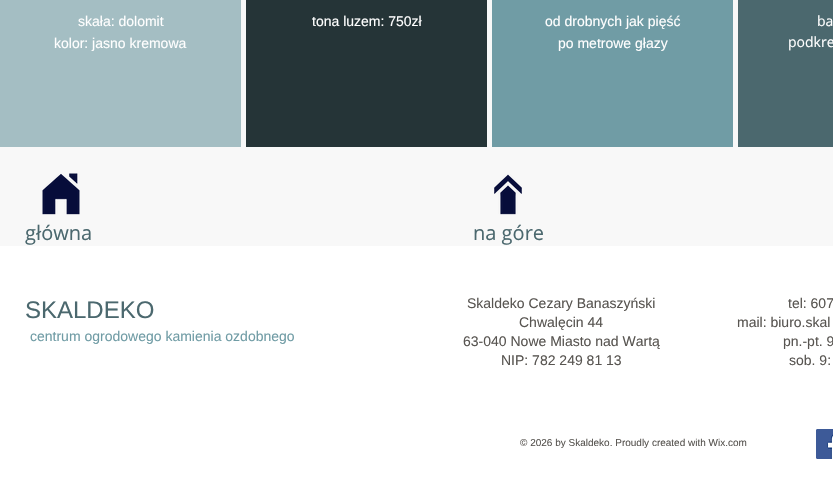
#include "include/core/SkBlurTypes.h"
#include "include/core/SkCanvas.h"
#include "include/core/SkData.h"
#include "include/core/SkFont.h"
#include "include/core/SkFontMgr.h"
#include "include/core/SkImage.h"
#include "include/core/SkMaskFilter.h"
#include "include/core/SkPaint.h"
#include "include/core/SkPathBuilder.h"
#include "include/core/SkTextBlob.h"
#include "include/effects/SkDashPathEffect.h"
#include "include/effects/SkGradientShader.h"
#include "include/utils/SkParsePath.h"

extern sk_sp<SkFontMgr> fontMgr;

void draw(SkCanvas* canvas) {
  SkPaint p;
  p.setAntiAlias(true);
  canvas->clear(SkColorSetRGB(248, 248, 248));
  p.setColor(SkColorSetRGB(164, 190, 195));
  canvas->drawRect(SkRect::MakeLTRB(0, 0, 241, 147), p);
  p.setColor(SkColorSetRGB(37, 52, 55));
  canvas->drawRect(SkRect::MakeLTRB(246, 0, 487, 147), p);
  p.setColor(SkColorSetRGB(112, 156, 165));
  canvas->drawRect(SkRect::MakeLTRB(492, 0, 733, 147), p);
  p.setColor(SkColorSetRGB(75, 104, 110));
  canvas->drawRect(SkRect::MakeLTRB(738, 0, 833, 147), p);
  canvas->drawImageRect(SkImages::DeferredFromEncodedData(SkData::MakeFromFileName("images/1.png")), SkRect::MakeLTRB(42, 173, 80, 215), SkSamplingOptions());
  canvas->drawImageRect(SkImages::DeferredFromEncodedData(SkData::MakeFromFileName("images/2.png")), SkRect::MakeLTRB(494, 174, 522, 215), SkSamplingOptions());
  p.setColor(SK_ColorWHITE);
  canvas->drawRect(SkRect::MakeLTRB(0, 246, 833, 484), p);
  canvas->drawImageRect(SkImages::DeferredFromEncodedData(SkData::MakeFromFileName("images/3.png")), SkRect::MakeLTRB(816, 429, 833, 459), SkSamplingOptions());
  SkFont font1(fontMgr->matchFamilyStyle("Liberation Sans", SkFontStyle::Normal()), 14);
  font1.setSubpixel(true);
  canvas->drawString("skała: dolomit", 78, 26, font1, p);
  canvas->drawString("kolor: jasno kremowa", 54, 48, font1, p);
  canvas->drawString("tona luzem: 750zł", 312, 26, font1, p);
  canvas->drawString("od drobnych jak pięść", 545, 26, font1, p);
  canvas->drawString("po metrowe głazy", 558, 48, font1, p);
  SkFont font2(fontMgr->matchFamilyStyle("Open Sans", SkFontStyle::Normal()), 14);
  font2.setSubpixel(true);
  canvas->drawString("ba", 817, 26, font2, p);
  canvas->drawString("podkre", 788, 47, font2, p);
  SkFont font3(fontMgr->matchFamilyStyle("Open Sans", SkFontStyle::Normal()), 20);
  font3.setSubpixel(true);
  p.setColor(SkColorSetRGB(75, 104, 110));
  canvas->drawString("główna", 25, 240, font3, p);
  canvas->drawString("na góre", 473, 240, font3, p);
  SkFont font4(fontMgr->matchFamilyStyle("Liberation Sans", SkFontStyle::Normal()), 24);
  font4.setSubpixel(true);
  canvas->drawString("SKALDEKO", 25, 318, font4, p);
  p.setColor(SkColorSetRGB(88, 85, 81));
  canvas->drawString("Skaldeko Cezary Banaszyński", 467, 308, font1, p);
  canvas->drawString("Chwalęcin 44", 519, 327, font1, p);
  canvas->drawString("63-040 Nowe Miasto nad Wartą", 463, 346, font1, p);
  canvas->drawString("NIP: 782 249 81 13", 501, 365, font1, p);
  canvas->drawString("tel: 607", 788, 308, font1, p);
  canvas->drawString("mail: biuro.skal", 737, 327, font1, p);
  canvas->drawString("pn.-pt. 9", 783, 346, font1, p);
  canvas->drawString("sob. 9:", 789, 365, font1, p);
  p.setColor(SkColorSetRGB(112, 156, 165));
  canvas->drawString("centrum ogrodowego kamienia ozdobnego", 30, 341, font1, p);
  SkFont font5(fontMgr->matchFamilyStyle("Liberation Sans", SkFontStyle::Normal()), 10);
  font5.setSubpixel(true);
  p.setColor(SkColorSetRGB(88, 85, 81));
  canvas->drawString("© 2026 by Skaldeko. Proudly created with Wix.com", 520, 446, font5, p);
}
